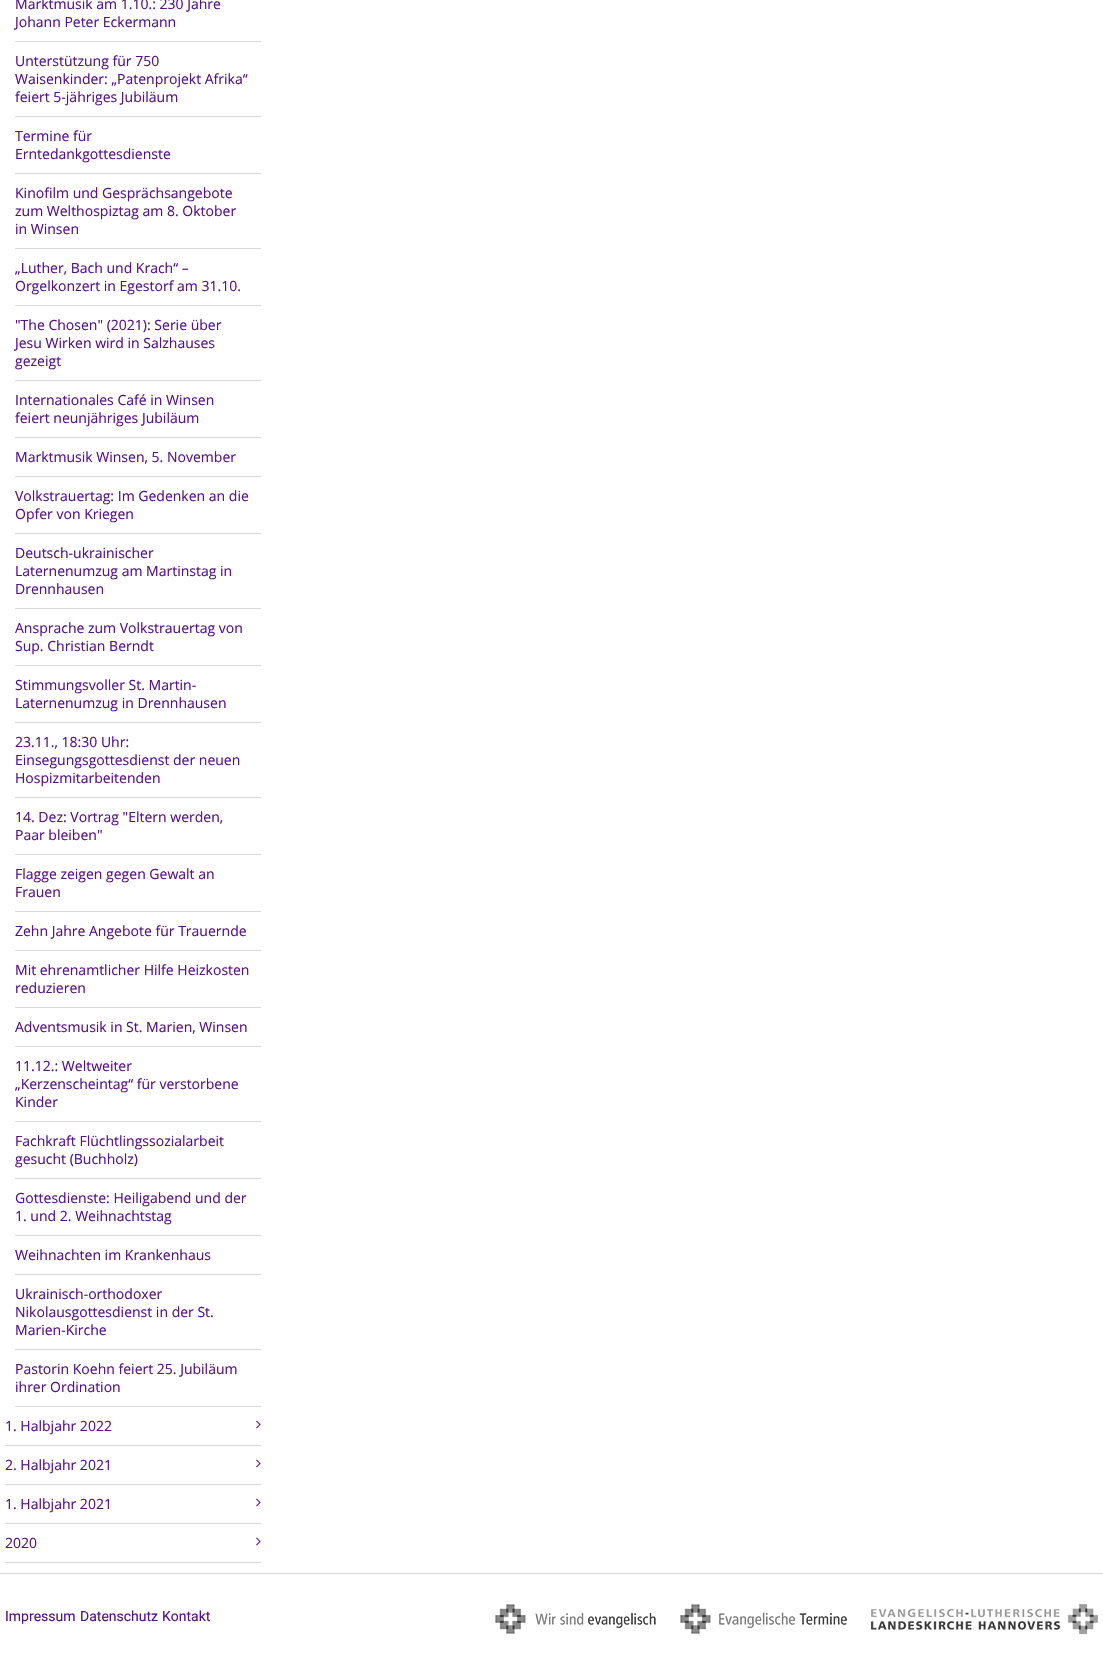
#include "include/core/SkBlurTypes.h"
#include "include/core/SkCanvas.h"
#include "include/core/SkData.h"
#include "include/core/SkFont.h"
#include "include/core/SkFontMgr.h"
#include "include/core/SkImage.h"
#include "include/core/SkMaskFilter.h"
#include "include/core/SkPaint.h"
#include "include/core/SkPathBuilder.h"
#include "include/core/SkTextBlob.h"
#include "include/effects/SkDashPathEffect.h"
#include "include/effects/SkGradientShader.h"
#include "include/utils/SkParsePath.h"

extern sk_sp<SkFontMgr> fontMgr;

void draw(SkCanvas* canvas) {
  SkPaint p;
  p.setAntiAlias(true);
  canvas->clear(SK_ColorWHITE);
  p.setColor(SkColorSetRGB(216, 216, 216));
  canvas->drawRect(SkRect::MakeLTRB(15, 41, 261, 42), p);
  canvas->drawRect(SkRect::MakeLTRB(15, 116, 261, 117), p);
  canvas->drawRect(SkRect::MakeLTRB(15, 173, 261, 174), p);
  canvas->drawRect(SkRect::MakeLTRB(15, 248, 261, 249), p);
  canvas->drawRect(SkRect::MakeLTRB(15, 305, 261, 306), p);
  canvas->drawRect(SkRect::MakeLTRB(15, 380, 261, 381), p);
  canvas->drawRect(SkRect::MakeLTRB(15, 437, 261, 438), p);
  canvas->drawRect(SkRect::MakeLTRB(15, 476, 261, 477), p);
  canvas->drawRect(SkRect::MakeLTRB(15, 533, 261, 534), p);
  canvas->drawRect(SkRect::MakeLTRB(15, 608, 261, 609), p);
  canvas->drawRect(SkRect::MakeLTRB(15, 665, 261, 666), p);
  canvas->drawRect(SkRect::MakeLTRB(15, 722, 261, 723), p);
  canvas->drawRect(SkRect::MakeLTRB(15, 797, 261, 798), p);
  canvas->drawRect(SkRect::MakeLTRB(15, 854, 261, 855), p);
  canvas->drawRect(SkRect::MakeLTRB(15, 911, 261, 912), p);
  canvas->drawRect(SkRect::MakeLTRB(15, 950, 261, 951), p);
  canvas->drawRect(SkRect::MakeLTRB(15, 1007, 261, 1008), p);
  canvas->drawRect(SkRect::MakeLTRB(15, 1046, 261, 1047), p);
  canvas->drawRect(SkRect::MakeLTRB(15, 1121, 261, 1122), p);
  canvas->drawRect(SkRect::MakeLTRB(15, 1178, 261, 1179), p);
  canvas->drawRect(SkRect::MakeLTRB(15, 1235, 261, 1236), p);
  canvas->drawRect(SkRect::MakeLTRB(15, 1274, 261, 1275), p);
  canvas->drawRect(SkRect::MakeLTRB(15, 1349, 261, 1350), p);
  canvas->drawRect(SkRect::MakeLTRB(15, 1406, 261, 1407), p);
  canvas->drawRect(SkRect::MakeLTRB(5, 1445, 261, 1446), p);
  canvas->drawImageRect(SkImages::DeferredFromEncodedData(SkData::MakeFromFileName("images/1.png")), SkRect::MakeLTRB(256, 1420, 261, 1429), SkSamplingOptions());
  canvas->drawRect(SkRect::MakeLTRB(5, 1484, 261, 1485), p);
  canvas->drawImageRect(SkImages::DeferredFromEncodedData(SkData::MakeFromFileName("images/1.png")), SkRect::MakeLTRB(256, 1459, 261, 1468), SkSamplingOptions());
  canvas->drawRect(SkRect::MakeLTRB(5, 1523, 261, 1524), p);
  canvas->drawImageRect(SkImages::DeferredFromEncodedData(SkData::MakeFromFileName("images/1.png")), SkRect::MakeLTRB(256, 1498, 261, 1507), SkSamplingOptions());
  canvas->drawRect(SkRect::MakeLTRB(5, 1562, 261, 1563), p);
  canvas->drawImageRect(SkImages::DeferredFromEncodedData(SkData::MakeFromFileName("images/1.png")), SkRect::MakeLTRB(256, 1537, 261, 1546), SkSamplingOptions());
  canvas->drawRect(SkRect::MakeLTRB(0, 1573, 1103, 1574), p);
  canvas->drawImageRect(SkImages::DeferredFromEncodedData(SkData::MakeFromFileName("images/2.png")), SkRect::MakeLTRB(495, 1604, 656, 1634), SkSamplingOptions());
  canvas->drawImageRect(SkImages::DeferredFromEncodedData(SkData::MakeFromFileName("images/3.png")), SkRect::MakeLTRB(680, 1604, 847, 1634), SkSamplingOptions());
  canvas->drawImageRect(SkImages::DeferredFromEncodedData(SkData::MakeFromFileName("images/4.png")), SkRect::MakeLTRB(871, 1604, 1098, 1634), SkSamplingOptions());
  SkFont font1(fontMgr->matchFamilyStyle("Open Sans", SkFontStyle::Normal()), 14);
  font1.setSubpixel(true);
  p.setColor(SkColorSetRGB(85, 18, 133));
  canvas->drawString("Marktmusik am 1.10.: 230 Jahre", 15, 9, font1, p);
  canvas->drawString("Johann Peter Eckermann", 15, 27, font1, p);
  canvas->drawString("Unterstützung für 750", 15, 66, font1, p);
  canvas->drawString("Waisenkinder: „Patenprojekt Afrika“", 15, 84, font1, p);
  canvas->drawString("feiert 5-jähriges Jubiläum", 15, 102, font1, p);
  canvas->drawString("Termine für", 15, 141, font1, p);
  canvas->drawString("Erntedankgottesdienste", 15, 159, font1, p);
  canvas->drawString("Kinofilm und Gesprächsangebote", 15, 198, font1, p);
  canvas->drawString("zum Welthospiztag am 8. Oktober", 15, 216, font1, p);
  canvas->drawString("in Winsen", 15, 234, font1, p);
  canvas->drawString("„Luther, Bach und Krach“ –", 15, 273, font1, p);
  canvas->drawString("Orgelkonzert in Egestorf am 31.10.", 15, 291, font1, p);
  canvas->drawString("\"The Chosen\" (2021): Serie über", 15, 330, font1, p);
  canvas->drawString("Jesu Wirken wird in Salzhauses", 15, 348, font1, p);
  canvas->drawString("gezeigt", 15, 366, font1, p);
  canvas->drawString("Internationales Café in Winsen", 15, 405, font1, p);
  canvas->drawString("feiert neunjähriges Jubiläum", 15, 423, font1, p);
  canvas->drawString("Marktmusik Winsen, 5. November", 15, 462, font1, p);
  canvas->drawString("Volkstrauertag: Im Gedenken an die", 15, 501, font1, p);
  canvas->drawString("Opfer von Kriegen", 15, 519, font1, p);
  canvas->drawString("Deutsch-ukrainischer", 15, 558, font1, p);
  canvas->drawString("Laternenumzug am Martinstag in", 15, 576, font1, p);
  canvas->drawString("Drennhausen", 15, 594, font1, p);
  canvas->drawString("Ansprache zum Volkstrauertag von", 15, 633, font1, p);
  canvas->drawString("Sup. Christian Berndt", 15, 651, font1, p);
  canvas->drawString("Stimmungsvoller St. Martin-", 15, 690, font1, p);
  canvas->drawString("Laternenumzug in Drennhausen", 15, 708, font1, p);
  canvas->drawString("23.11., 18:30 Uhr:", 15, 747, font1, p);
  canvas->drawString("Einsegungsgottesdienst der neuen", 15, 765, font1, p);
  canvas->drawString("Hospizmitarbeitenden", 15, 783, font1, p);
  canvas->drawString("14. Dez: Vortrag \"Eltern werden,", 15, 822, font1, p);
  canvas->drawString("Paar bleiben\"", 15, 840, font1, p);
  canvas->drawString("Flagge zeigen gegen Gewalt an", 15, 879, font1, p);
  canvas->drawString("Frauen", 15, 897, font1, p);
  canvas->drawString("Zehn Jahre Angebote für Trauernde", 15, 936, font1, p);
  canvas->drawString("Mit ehrenamtlicher Hilfe Heizkosten", 15, 975, font1, p);
  canvas->drawString("reduzieren", 15, 993, font1, p);
  canvas->drawString("Adventsmusik in St. Marien, Winsen", 15, 1032, font1, p);
  canvas->drawString("11.12.: Weltweiter", 15, 1071, font1, p);
  canvas->drawString("„Kerzenscheintag“ für verstorbene", 15, 1089, font1, p);
  canvas->drawString("Kinder", 15, 1107, font1, p);
  canvas->drawString("Fachkraft Flüchtlingssozialarbeit", 15, 1146, font1, p);
  canvas->drawString("gesucht (Buchholz)", 15, 1164, font1, p);
  canvas->drawString("Gottesdienste: Heiligabend und der", 15, 1203, font1, p);
  canvas->drawString("1. und 2. Weihnachtstag", 15, 1221, font1, p);
  canvas->drawString("Weihnachten im Krankenhaus", 15, 1260, font1, p);
  canvas->drawString("Ukrainisch-orthodoxer", 15, 1299, font1, p);
  canvas->drawString("Nikolausgottesdienst in der St.", 15, 1317, font1, p);
  canvas->drawString("Marien-Kirche", 15, 1335, font1, p);
  canvas->drawString("Pastorin Koehn feiert 25. Jubiläum", 15, 1374, font1, p);
  canvas->drawString("ihrer Ordination", 15, 1392, font1, p);
  canvas->drawString("1. Halbjahr 2022", 5, 1431, font1, p);
  canvas->drawString("2. Halbjahr 2021", 5, 1470, font1, p);
  canvas->drawString("1. Halbjahr 2021", 5, 1509, font1, p);
  canvas->drawString("2020", 5, 1548, font1, p);
  SkFont font2(fontMgr->matchFamilyStyle("Roboto", SkFontStyle::Normal()), 14);
  font2.setSubpixel(true);
  canvas->drawString("Impressum", 5, 1621, font2, p);
  canvas->drawString("Datenschutz", 80, 1621, font2, p);
  canvas->drawString("Kontakt", 162, 1621, font2, p);
}
